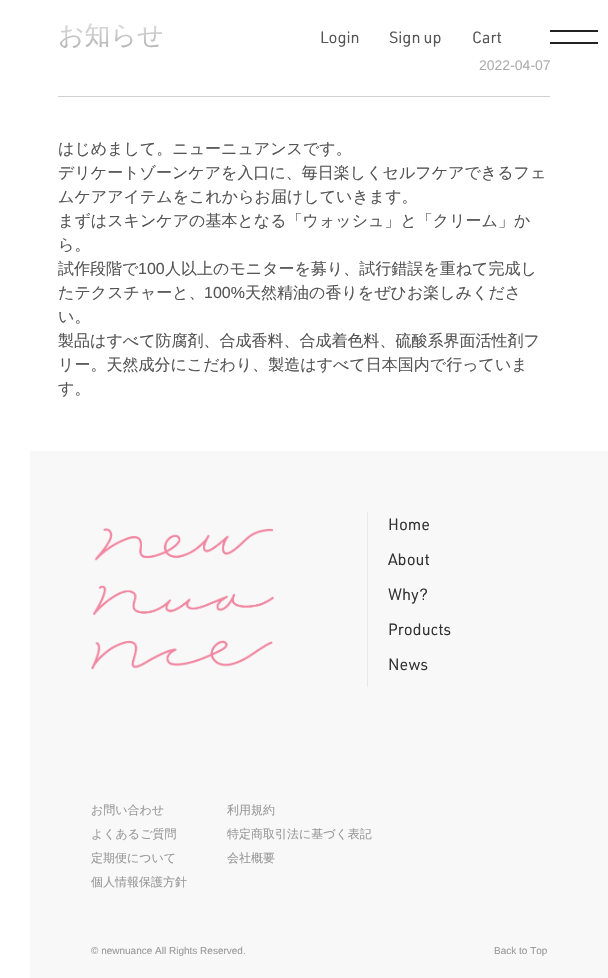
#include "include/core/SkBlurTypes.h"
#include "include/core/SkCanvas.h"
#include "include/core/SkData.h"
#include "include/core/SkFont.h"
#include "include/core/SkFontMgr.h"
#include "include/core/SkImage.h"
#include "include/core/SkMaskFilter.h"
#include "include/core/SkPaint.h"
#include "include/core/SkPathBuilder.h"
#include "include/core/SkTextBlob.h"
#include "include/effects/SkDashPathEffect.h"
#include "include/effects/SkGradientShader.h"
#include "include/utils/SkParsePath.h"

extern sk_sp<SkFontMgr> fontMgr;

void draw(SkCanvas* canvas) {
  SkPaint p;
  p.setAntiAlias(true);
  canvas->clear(SK_ColorWHITE);
  p.setColor(SkColorSetRGB(204, 204, 204));
  canvas->drawRect(SkRect::MakeLTRB(58, 96, 550, 97), p);
  p.setColor(SkColorSetRGB(34, 34, 34));
  canvas->drawRect(SkRect::MakeLTRB(550, 30, 598, 32), p);
  canvas->drawRect(SkRect::MakeLTRB(550, 42, 598, 44), p);
  p.setColor(SkColorSetRGB(248, 248, 248));
  canvas->drawRect(SkRect::MakeLTRB(30, 451, 608, 978), p);
  canvas->drawImageRect(SkImages::DeferredFromEncodedData(SkData::MakeFromFileName("images/1.png")), SkRect::MakeLTRB(91, 528, 274, 670), SkSamplingOptions());
  p.setColor(SkColorSetRGB(233, 233, 233));
  canvas->drawRect(SkRect::MakeLTRB(367, 512, 368, 687), p);
  SkFont font1(fontMgr->matchFamilyStyle("WenQuanYi Zen Hei", SkFontStyle(500, SkFontStyle::kNormal_Width, SkFontStyle::kUpright_Slant)), 26);
  font1.setSubpixel(true);
  p.setColor(SkColorSetRGB(85, 85, 85));
  canvas->drawString("お知らせ", 58, 44, font1, p);
  SkFont font2(fontMgr->matchFamilyStyle("Liberation Sans", SkFontStyle::Normal()), 14);
  font2.setSubpixel(true);
  p.setColor(SkColorSetRGB(117, 117, 117));
  canvas->drawString("2022-04-07", 479, 70, font2, p);
  SkFont font3(fontMgr->matchFamilyStyle("WenQuanYi Zen Hei", SkFontStyle(500, SkFontStyle::kNormal_Width, SkFontStyle::kUpright_Slant)), 16);
  font3.setSubpixel(true);
  p.setColor(SkColorSetRGB(85, 85, 85));
  canvas->drawString("はじめまして。ニューニュアンスです。", 58, 154, font3, p);
  canvas->drawString("デリケートゾーンケアを入口に、毎日楽しくセルフケアできるフェ", 58, 178, font3, p);
  canvas->drawString("ムケアアイテムをこれからお届けしていきます。", 58, 202, font3, p);
  canvas->drawString("まずはスキンケアの基本となる「ウォッシュ」と「クリーム」か", 58, 226, font3, p);
  canvas->drawString("ら。", 58, 250, font3, p);
  canvas->drawString("試作段階で", 58, 274, font3, p);
  SkFont font4(fontMgr->matchFamilyStyle("Liberation Sans", SkFontStyle::Normal()), 16);
  font4.setSubpixel(true);
  canvas->drawString("100", 138, 274, font4, p);
  canvas->drawString("人以上のモニターを募り、試行錯誤を重ねて完成し", 165, 274, font3, p);
  canvas->drawString("たテクスチャーと、", 58, 298, font3, p);
  canvas->drawString("100%", 204, 298, font4, p);
  canvas->drawString("天然精油の香りをぜひお楽しみくださ", 245, 298, font3, p);
  canvas->drawString("い。", 58, 322, font3, p);
  canvas->drawString("製品はすべて防腐剤、合成香料、合成着色料、硫酸系界面活性剤フ", 58, 346, font3, p);
  canvas->drawString("リー。天然成分にこだわり、製造はすべて日本国内で行っていま", 58, 370, font3, p);
  canvas->drawString("す。", 58, 394, font3, p);
  {
    const SkColor colors[] = {SK_ColorWHITE, SkColorSetARGB(0, 255, 255, 255)};
    const float stops[] = {0, 1};
    const SkPoint ends[] = {{304, 0}, {304, 110}};
    p.setShader(SkGradientShader::MakeLinear(ends, colors, stops, 2, SkTileMode::kClamp));
    p.setAlpha(255);
  }
  canvas->drawRect(SkRect::MakeLTRB(58, 23, 550, 97), p);
  SkFont font5(fontMgr->matchFamilyStyle("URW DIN", SkFontStyle::Normal()), 16);
  font5.setSubpixel(true);
  p.setShader(nullptr);
  p.setColor(SkColorSetRGB(85, 85, 85));
  canvas->drawString("Login", 320, 43, font5, p);
  canvas->drawString("Sign up", 389, 43, font5, p);
  canvas->drawString("Cart", 472, 43, font5, p);
  p.setColor(SkColorSetRGB(51, 51, 51));
  canvas->drawString("Home", 388, 530, font5, p);
  canvas->drawString("About", 388, 565, font5, p);
  canvas->drawString("Why?", 388, 600, font5, p);
  canvas->drawString("Products", 388, 635, font5, p);
  canvas->drawString("News", 388, 670, font5, p);
  SkFont font6(fontMgr->matchFamilyStyle("WenQuanYi Zen Hei", SkFontStyle(500, SkFontStyle::kNormal_Width, SkFontStyle::kUpright_Slant)), 12);
  font6.setSubpixel(true);
  p.setColor(SkColorSetRGB(153, 153, 153));
  canvas->drawString("お問い合わせ", 91, 814, font6, p);
  canvas->drawString("よくあるご質問", 91, 838, font6, p);
  canvas->drawString("定期便について", 91, 862, font6, p);
  canvas->drawString("個人情報保護方針", 91, 886, font6, p);
  canvas->drawString("利用規約", 227, 814, font6, p);
  canvas->drawString("特定商取引法に基づく表記", 227, 838, font6, p);
  canvas->drawString("会社概要", 227, 862, font6, p);
  SkFont font7(fontMgr->matchFamilyStyle("Liberation Sans", SkFontStyle::Normal()), 10);
  font7.setSubpixel(true);
  canvas->drawString("© newnuance All Rights Reserved.", 91, 954, font7, p);
  canvas->drawString("Back to Top", 494, 954, font7, p);
}
